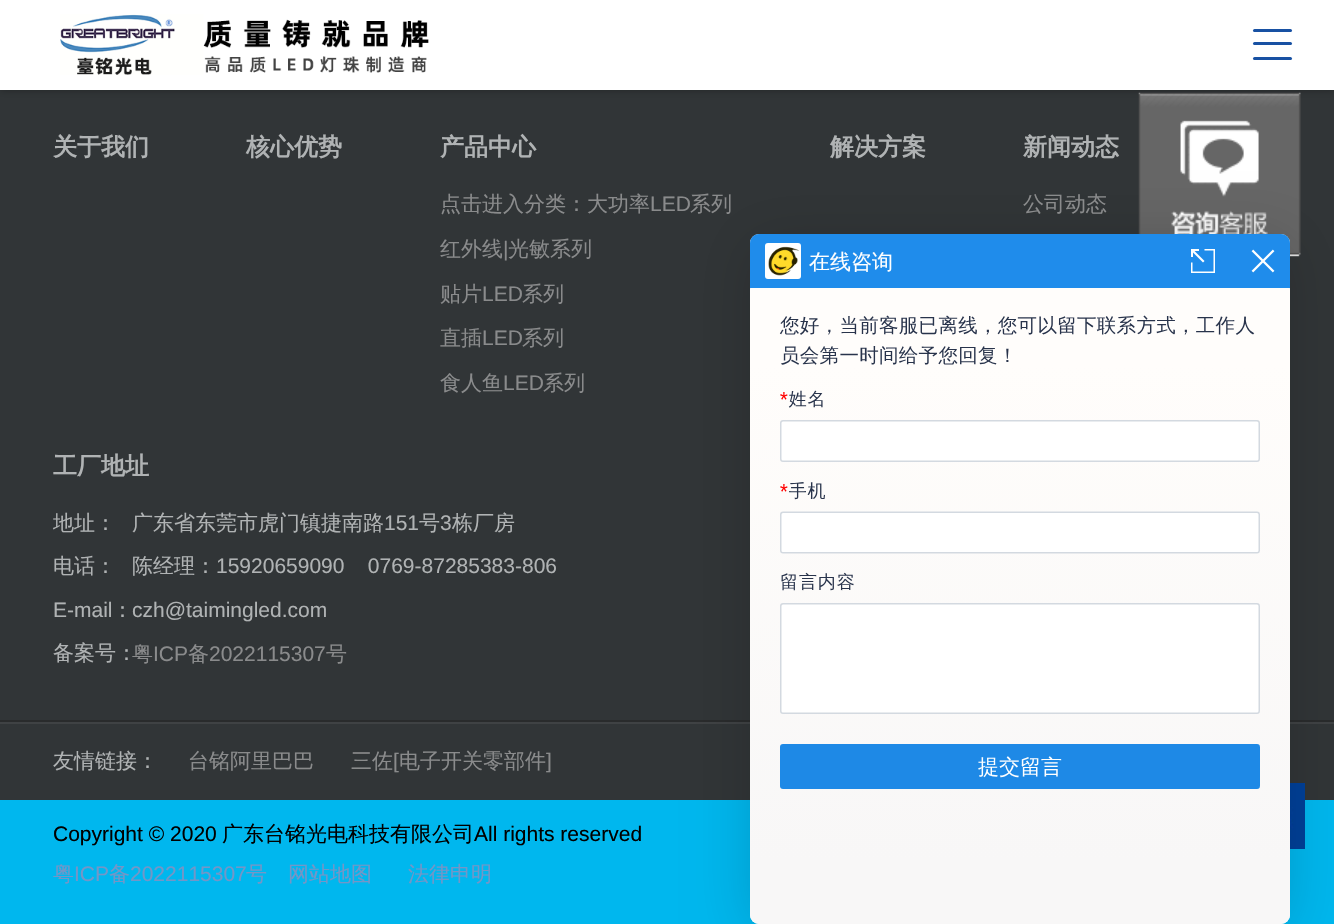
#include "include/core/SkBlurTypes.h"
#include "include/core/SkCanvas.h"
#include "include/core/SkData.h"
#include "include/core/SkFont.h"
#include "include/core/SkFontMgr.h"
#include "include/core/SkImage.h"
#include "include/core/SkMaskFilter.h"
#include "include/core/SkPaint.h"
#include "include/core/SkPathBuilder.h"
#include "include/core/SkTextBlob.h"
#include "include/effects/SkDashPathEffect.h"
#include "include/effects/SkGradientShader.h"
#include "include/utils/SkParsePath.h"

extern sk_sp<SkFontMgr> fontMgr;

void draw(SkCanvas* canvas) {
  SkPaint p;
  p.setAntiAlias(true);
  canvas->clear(SkColorSetRGB(49, 53, 55));
  p.setColor(SkColorSetARGB(77, 0, 0, 0));
  p.setMaskFilter(SkMaskFilter::MakeBlur(kNormal_SkBlurStyle, 4));
  canvas->drawRect(SkRect::MakeLTRB(0, 0, 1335, 90), p);
  p.setMaskFilter(nullptr);
  p.setColor(SK_ColorWHITE);
  canvas->drawRect(SkRect::MakeLTRB(0, 0, 1334, 90), p);
  canvas->drawImageRect(SkImages::DeferredFromEncodedData(SkData::MakeFromFileName("images/1.png")), SkRect::MakeLTRB(60, 14, 429, 75), SkSamplingOptions());
  p.setColor(SkColorSetRGB(24, 81, 163));
  canvas->drawRoundRect(SkRect::MakeLTRB(1253, 29, 1292, 32), 1.5f, 1.5f, p);
  canvas->drawRoundRect(SkRect::MakeLTRB(1253, 42, 1292, 45), 1.5f, 1.5f, p);
  canvas->drawRoundRect(SkRect::MakeLTRB(1253, 57, 1292, 60), 1.5f, 1.5f, p);
  p.setColor(SkColorSetRGB(41, 43, 44));
  canvas->drawRect(SkRect::MakeLTRB(0, 720, 1334, 722), p);
  p.setColor(SkColorSetRGB(63, 66, 68));
  canvas->drawRect(SkRect::MakeLTRB(0, 722, 1334, 724), p);
  canvas->drawImageRect(SkImages::DeferredFromEncodedData(SkData::MakeFromFileName("images/2.png")), SkRect::MakeLTRB(1138, 92, 1301, 257), SkSamplingOptions());
  p.setColor(SkColorSetRGB(0, 183, 238));
  canvas->drawRect(SkRect::MakeLTRB(0, 800, 1334, 924), p);
  canvas->drawImageRect(SkImages::DeferredFromEncodedData(SkData::MakeFromFileName("images/7.png")), SkRect::MakeLTRB(1290, 783, 1305, 849), SkSamplingOptions());
  p.setColor(SkColorSetARGB(41, 0, 0, 0));
  p.setMaskFilter(SkMaskFilter::MakeBlur(kNormal_SkBlurStyle, 30));
  canvas->drawRoundRect(SkRect::MakeLTRB(750, 242, 1290, 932), 9, 9, p);
  p.setMaskFilter(nullptr);
  p.setColor(SK_ColorWHITE);
  canvas->drawRoundRect(SkRect::MakeLTRB(750, 234, 1290, 924), 9, 9, p);
  p.setColor(SkColorSetRGB(31, 140, 235));
  canvas->drawPath(SkPathBuilder().moveTo(759, 234).lineTo(1281, 234).cubicTo(1286, 234, 1290, 238, 1290, 243).lineTo(1290, 288).lineTo(750, 288).lineTo(750, 243).cubicTo(750, 238, 754, 234, 759, 234).close().detach(), p);
  canvas->drawImageRect(SkImages::DeferredFromEncodedData(SkData::MakeFromFileName("images/3.png")), SkRect::MakeLTRB(765, 243, 801, 279), SkSamplingOptions());
  canvas->drawImageRect(SkImages::DeferredFromEncodedData(SkData::MakeFromFileName("images/4.png")), SkRect::MakeLTRB(1191, 249, 1215, 273), SkSamplingOptions());
  canvas->drawImageRect(SkImages::DeferredFromEncodedData(SkData::MakeFromFileName("images/5.png")), SkRect::MakeLTRB(1251, 249, 1275, 273), SkSamplingOptions());
  canvas->drawImageRect(SkImages::DeferredFromEncodedData(SkData::MakeFromFileName("images/6.png")), SkRect::MakeLTRB(750, 288, 1290, 924), SkSamplingOptions());
  SkFont font1(fontMgr->matchFamilyStyle("WenQuanYi Zen Hei", SkFontStyle::Bold()), 24);
  font1.setSubpixel(true);
  p.setColor(SkColorSetRGB(176, 179, 180));
  canvas->drawString("关于我们", 53, 155, font1, p);
  canvas->drawString("核心优势", 246, 155, font1, p);
  canvas->drawString("产品中心", 440, 155, font1, p);
  SkFont font2(fontMgr->matchFamilyStyle("WenQuanYi Zen Hei", SkFontStyle(500, SkFontStyle::kNormal_Width, SkFontStyle::kUpright_Slant)), 21);
  font2.setSubpixel(true);
  p.setColor(SkColorSetRGB(138, 139, 140));
  canvas->drawString("点击进入分类：大功率", 440, 211, font2, p);
  SkFont font3(fontMgr->matchFamilyStyle("Liberation Sans", SkFontStyle::Normal()), 21);
  font3.setSubpixel(true);
  canvas->drawString("LED", 650, 211, font3, p);
  canvas->drawString("系列", 690, 211, font2, p);
  canvas->drawString("红外线", 440, 256, font2, p);
  canvas->drawString("|", 503, 256, font3, p);
  canvas->drawString("光敏系列", 508, 256, font2, p);
  canvas->drawString("贴片", 440, 301, font2, p);
  canvas->drawString("LED", 482, 301, font3, p);
  canvas->drawString("系列", 522, 301, font2, p);
  canvas->drawString("直插", 440, 345, font2, p);
  canvas->drawString("LED", 482, 345, font3, p);
  canvas->drawString("系列", 522, 345, font2, p);
  canvas->drawString("食人鱼", 440, 390, font2, p);
  canvas->drawString("LED", 503, 390, font3, p);
  canvas->drawString("系列", 543, 390, font2, p);
  p.setColor(SkColorSetRGB(176, 179, 180));
  canvas->drawString("解决方案", 830, 155, font1, p);
  canvas->drawString("新闻动态", 1023, 155, font1, p);
  p.setColor(SkColorSetRGB(138, 139, 140));
  canvas->drawString("公司动态", 1023, 211, font2, p);
  p.setColor(SkColorSetRGB(176, 179, 180));
  canvas->drawString("工厂地址", 53, 474, font1, p);
  canvas->drawString("地址：", 53, 530, font2, p);
  canvas->drawString("广东省东莞市虎门镇捷南路", 132, 530, font2, p);
  canvas->drawString("151", 384, 530, font3, p);
  canvas->drawString("号", 419, 530, font2, p);
  canvas->drawString("3", 440, 530, font3, p);
  canvas->drawString("栋厂房", 452, 530, font2, p);
  canvas->drawString("电话：", 53, 573, font2, p);
  canvas->drawString("陈经理：", 132, 573, font2, p);
  canvas->drawString("15920659090    0769-87285383-806", 216, 573, font3, p);
  canvas->drawString("E-mail", 53, 617, font3, p);
  canvas->drawString("：", 112, 617, font2, p);
  canvas->drawString("czh@taimingled.com", 132, 617, font3, p);
  canvas->drawString("备案号：", 53, 660, font2, p);
  p.setColor(SkColorSetRGB(138, 139, 140));
  canvas->drawString("粤", 132, 661, font2, p);
  canvas->drawString("ICP", 153, 661, font3, p);
  canvas->drawString("备", 188, 661, font2, p);
  canvas->drawString("2022115307", 209, 661, font3, p);
  canvas->drawString("号", 326, 661, font2, p);
  p.setColor(SkColorSetRGB(176, 179, 180));
  canvas->drawString("友情链接：", 53, 768, font2, p);
  p.setColor(SkColorSetRGB(138, 139, 140));
  canvas->drawString("台铭阿里巴巴", 188, 768, font2, p);
  canvas->drawString("三佐", 351, 768, font2, p);
  canvas->drawString("[", 393, 768, font3, p);
  canvas->drawString("电子开关零部件", 399, 768, font2, p);
  canvas->drawString("]", 546, 768, font3, p);
  p.setColor(SK_ColorWHITE);
  canvas->drawString("在线咨询", 809, 269, font2, p);
  p.setColor(SK_ColorBLACK);
  canvas->drawString("Copyright © 2020", 53, 841, font3, p);
  canvas->drawString("广东台铭光电科技有限公司", 222, 841, font2, p);
  canvas->drawString("All rights reserved", 474, 841, font3, p);
  p.setColor(SkColorSetRGB(116, 150, 199));
  canvas->drawString("粤", 53, 881, font2, p);
  canvas->drawString("ICP", 74, 881, font3, p);
  canvas->drawString("备", 109, 881, font2, p);
  canvas->drawString("2022115307", 130, 881, font3, p);
  canvas->drawString("号", 246, 881, font2, p);
  canvas->drawString("网站地图", 288, 881, font2, p);
  canvas->drawString("法律申明", 408, 881, font2, p);
}
